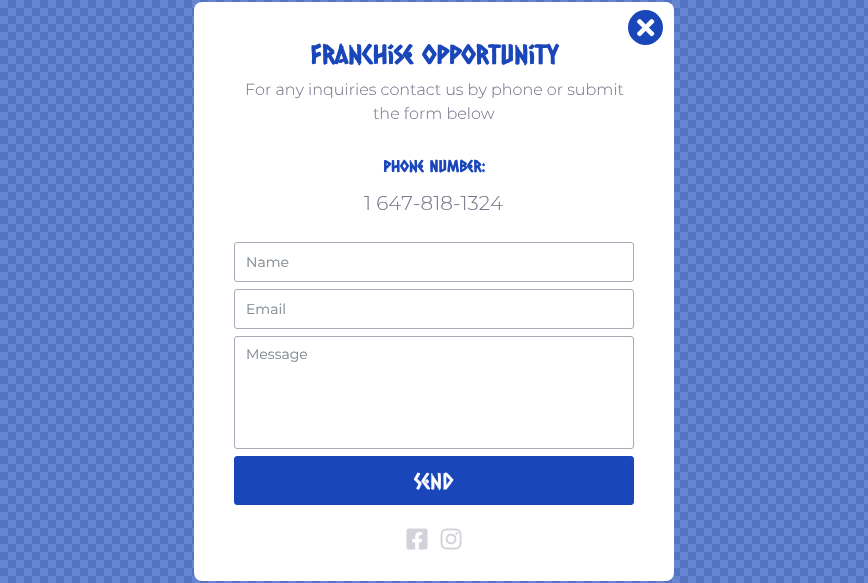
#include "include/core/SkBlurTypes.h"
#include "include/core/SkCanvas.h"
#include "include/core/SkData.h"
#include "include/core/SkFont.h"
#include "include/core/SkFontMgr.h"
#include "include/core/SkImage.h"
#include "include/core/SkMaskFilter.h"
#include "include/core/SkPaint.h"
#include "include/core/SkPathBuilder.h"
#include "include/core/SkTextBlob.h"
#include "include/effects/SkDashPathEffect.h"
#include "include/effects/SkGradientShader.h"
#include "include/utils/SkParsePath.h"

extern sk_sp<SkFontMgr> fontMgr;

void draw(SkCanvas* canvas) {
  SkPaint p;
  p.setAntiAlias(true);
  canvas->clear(SK_ColorWHITE);
  canvas->drawImageRect(SkImages::DeferredFromEncodedData(SkData::MakeFromFileName("images/1.png")), SkRect::MakeLTRB(0, 0, 868, 583), SkSamplingOptions());
  p.setColor(SK_ColorWHITE);
  canvas->drawRoundRect(SkRect::MakeLTRB(194, 2, 674, 581), 8, 8, p);
  p.setColor(SkColorSetRGB(25, 71, 186));
  canvas->drawCircle(645.5f, 27.5f, 17.5f, p);
  canvas->drawImageRect(SkImages::DeferredFromEncodedData(SkData::MakeFromFileName("images/2.png")), SkRect::MakeLTRB(637, 19, 655, 37), SkSamplingOptions());
  p.setStyle(SkPaint::kStroke_Style);
  p.setStrokeWidth(1);
  p.setColor(SkColorSetRGB(168, 168, 182));
  canvas->drawRoundRect(SkRect::MakeLTRB(234.5f, 242.5f, 633.5f, 281.5f), 2.5f, 2.5f, p);
  canvas->drawRoundRect(SkRect::MakeLTRB(234.5f, 289.5f, 633.5f, 328.5f), 2.5f, 2.5f, p);
  canvas->drawRoundRect(SkRect::MakeLTRB(234.5f, 336.5f, 633.5f, 448.5f), 2.5f, 2.5f, p);
  p.setStyle(SkPaint::kFill_Style);
  p.setColor(SkColorSetRGB(25, 71, 186));
  canvas->drawRoundRect(SkRect::MakeLTRB(234.5f, 456.5f, 633.5f, 504.5f), 2.5f, 2.5f, p);
  p.setStyle(SkPaint::kStroke_Style);
  canvas->drawRoundRect(SkRect::MakeLTRB(234.5f, 456.5f, 633.5f, 504.5f), 2.5f, 2.5f, p);
  canvas->drawImageRect(SkImages::DeferredFromEncodedData(SkData::MakeFromFileName("images/3.png")), SkRect::MakeLTRB(406, 528, 428, 550), SkSamplingOptions());
  canvas->drawImageRect(SkImages::DeferredFromEncodedData(SkData::MakeFromFileName("images/4.png")), SkRect::MakeLTRB(440, 528, 462, 550), SkSamplingOptions());
  SkFont font1(fontMgr->matchFamilyStyle("Caesar Dressing", SkFontStyle::Bold()), 26);
  font1.setSubpixel(true);
  p.setStyle(SkPaint::kFill_Style);
  canvas->drawString("Franchise Opportunity", 310, 64, font1, p);
  SkFont font2(fontMgr->matchFamilyStyle("Montserrat", SkFontStyle(300, SkFontStyle::kNormal_Width, SkFontStyle::kUpright_Slant)), 16);
  font2.setSubpixel(true);
  p.setColor(SkColorSetRGB(121, 121, 142));
  canvas->drawString("For any inquiries contact us by phone or submit", 245, 95, font2, p);
  canvas->drawString("the form below", 373, 119, font2, p);
  SkFont font3(fontMgr->matchFamilyStyle("Caesar Dressing", SkFontStyle::Bold()), 16);
  font3.setSubpixel(true);
  p.setColor(SkColorSetRGB(25, 71, 186));
  canvas->drawString("Phone Number:", 383, 172, font3, p);
  SkFont font4(fontMgr->matchFamilyStyle("Montserrat", SkFontStyle(300, SkFontStyle::kNormal_Width, SkFontStyle::kUpright_Slant)), 20);
  font4.setSubpixel(true);
  p.setColor(SkColorSetRGB(121, 121, 142));
  canvas->drawString("1 647-818-1324", 364, 210, font4, p);
  SkFont font5(fontMgr->matchFamilyStyle("Montserrat", SkFontStyle::Normal()), 14);
  font5.setSubpixel(true);
  p.setColor(SkColorSetRGB(129, 138, 145));
  canvas->drawString("Name", 246, 267, font5, p);
  canvas->drawString("Email", 246, 314, font5, p);
  canvas->drawString("Message", 246, 359, font5, p);
  SkFont font6(fontMgr->matchFamilyStyle("Caesar Dressing", SkFontStyle::Normal()), 22);
  font6.setSubpixel(true);
  p.setColor(SK_ColorWHITE);
  canvas->drawString("Send", 414, 489, font6, p);
}
